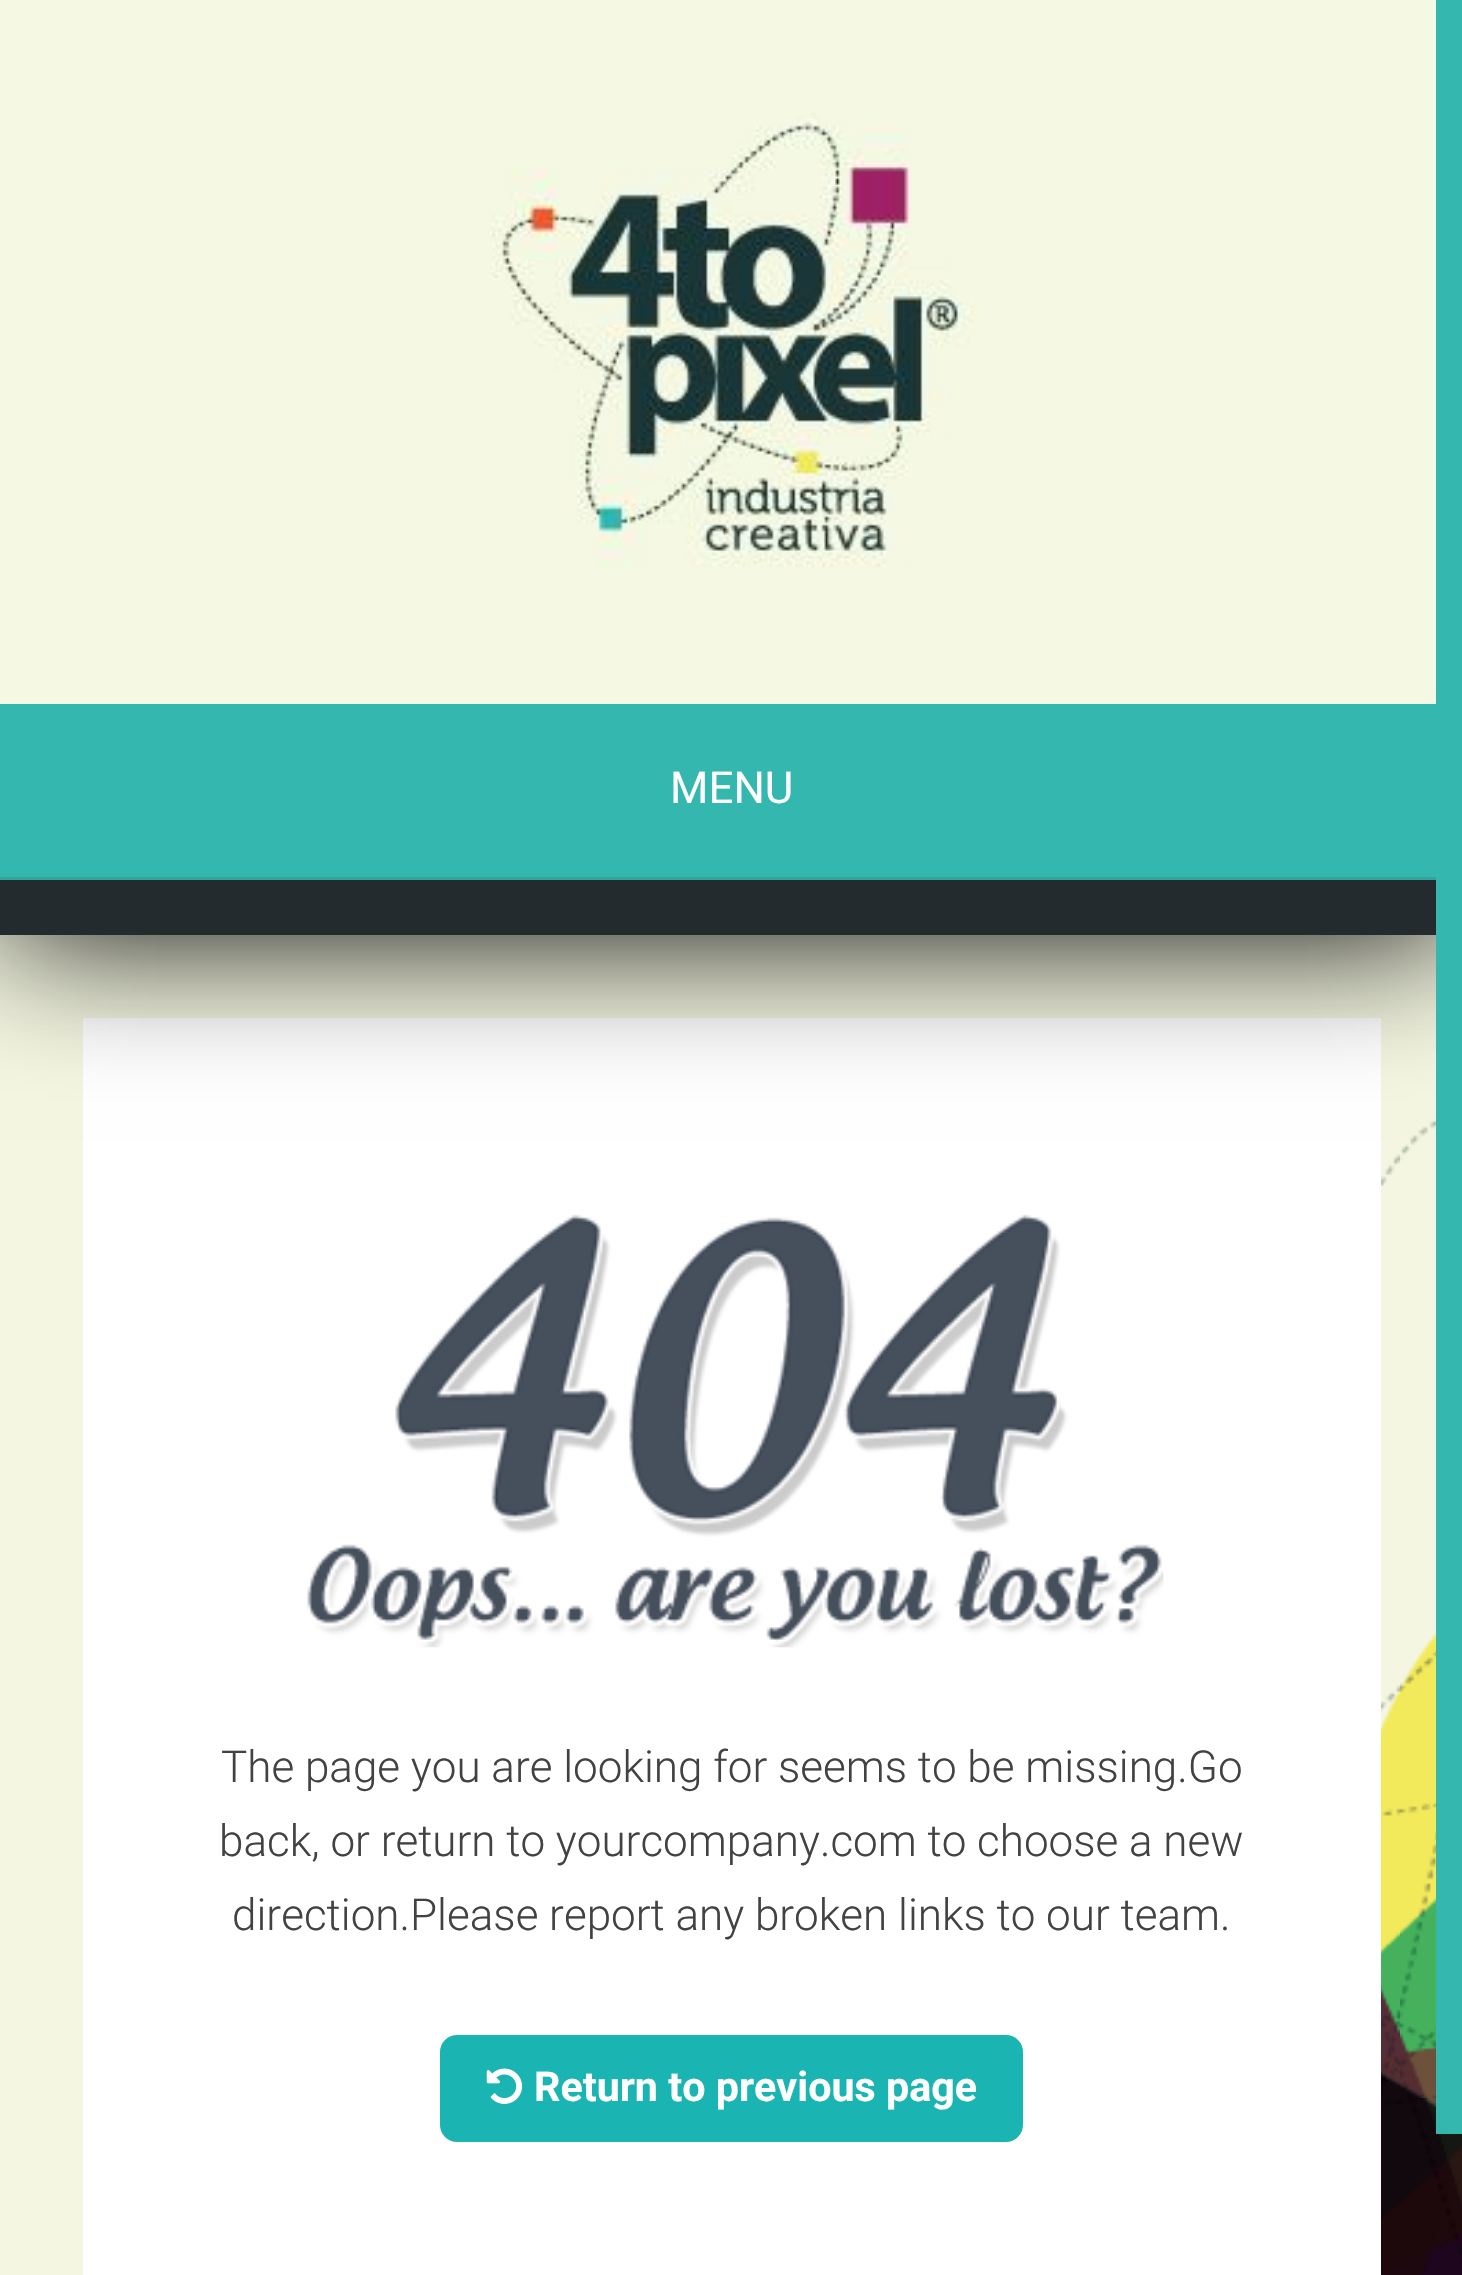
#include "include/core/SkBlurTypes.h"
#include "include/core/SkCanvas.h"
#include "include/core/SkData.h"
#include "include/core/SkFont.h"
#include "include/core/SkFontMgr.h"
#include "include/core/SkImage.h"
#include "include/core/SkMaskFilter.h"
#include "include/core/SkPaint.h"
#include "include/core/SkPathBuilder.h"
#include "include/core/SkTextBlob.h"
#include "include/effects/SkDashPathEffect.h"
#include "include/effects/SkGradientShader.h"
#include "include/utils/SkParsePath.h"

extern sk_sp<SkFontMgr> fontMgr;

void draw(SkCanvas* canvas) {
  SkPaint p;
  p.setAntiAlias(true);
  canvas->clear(SkColorSetRGB(244, 246, 225));
  canvas->drawImageRect(SkImages::DeferredFromEncodedData(SkData::MakeFromFileName("images/1.png")), SkRect::MakeLTRB(1381, 1119, 1462, 2275), SkSamplingOptions());
  p.setColor(SK_ColorWHITE);
  canvas->drawRect(SkRect::MakeLTRB(83, 1018, 1381, 2275), p);
  p.setColor(SK_ColorBLACK);
  p.setMaskFilter(SkMaskFilter::MakeBlur(kNormal_SkBlurStyle, 69));
  canvas->drawRect(SkRect::MakeLTRB(0, 0, 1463, 935), p);
  p.setMaskFilter(nullptr);
  p.setColor(SkColorSetRGB(36, 43, 46));
  canvas->drawRect(SkRect::MakeLTRB(0, 880, 1436, 935), p);
  p.setColor(SkColorSetRGB(245, 248, 227));
  canvas->drawRect(SkRect::MakeLTRB(0, 0, 1436, 704), p);
  canvas->drawImageRect(SkImages::DeferredFromEncodedData(SkData::MakeFromFileName("images/2.png")), SkRect::MakeLTRB(490, 113, 979, 568), SkSamplingOptions());
  p.setColor(SkColorSetRGB(52, 183, 174));
  canvas->drawRect(SkRect::MakeLTRB(0, 704, 1436, 877), p);
  p.setColor(SkColorSetRGB(47, 165, 157));
  canvas->drawRect(SkRect::MakeLTRB(0, 877, 1436, 880), p);
  canvas->drawImageRect(SkImages::DeferredFromEncodedData(SkData::MakeFromFileName("images/3.png")), SkRect::MakeLTRB(395, 1214, 1068, 1537), SkSamplingOptions());
  canvas->drawImageRect(SkImages::DeferredFromEncodedData(SkData::MakeFromFileName("images/4.png")), SkRect::MakeLTRB(307, 1544, 1164, 1648), SkSamplingOptions());
  p.setColor(SkColorSetRGB(26, 181, 179));
  canvas->drawRoundRect(SkRect::MakeLTRB(440, 2035, 1023, 2142), 17, 17, p);
  canvas->drawImageRect(SkImages::DeferredFromEncodedData(SkData::MakeFromFileName("images/5.png")), SkRect::MakeLTRB(486, 2068, 523, 2104), SkSamplingOptions());
  p.setColor(SkColorSetRGB(52, 183, 174));
  canvas->drawRect(SkRect::MakeLTRB(1436, 0, 1462, 2134), p);
  SkFont font1(fontMgr->matchFamilyStyle("Roboto", SkFontStyle::Normal()), 44);
  font1.setSubpixel(true);
  p.setColor(SK_ColorWHITE);
  canvas->drawString("MENU", 670, 803, font1, p);
  SkFont font2(fontMgr->matchFamilyStyle("Roboto", SkFontStyle(300, SkFontStyle::kNormal_Width, SkFontStyle::kUpright_Slant)), 44);
  font2.setSubpixel(true);
  p.setColor(SkColorSetRGB(66, 66, 66));
  canvas->drawString("The page you are looking for seems to be missing.Go", 221, 1782, font2, p);
  canvas->drawString("back, or return to yourcompany.com to choose a new", 219, 1856, font2, p);
  canvas->drawString("direction.Please report any broken links to our team.", 232, 1930, font2, p);
  SkFont font3(fontMgr->matchFamilyStyle("Roboto", SkFontStyle::Bold()), 41.25f);
  font3.setSubpixel(true);
  p.setColor(SK_ColorWHITE);
  canvas->drawString("Return to previous page", 534, 2101, font3, p);
}
